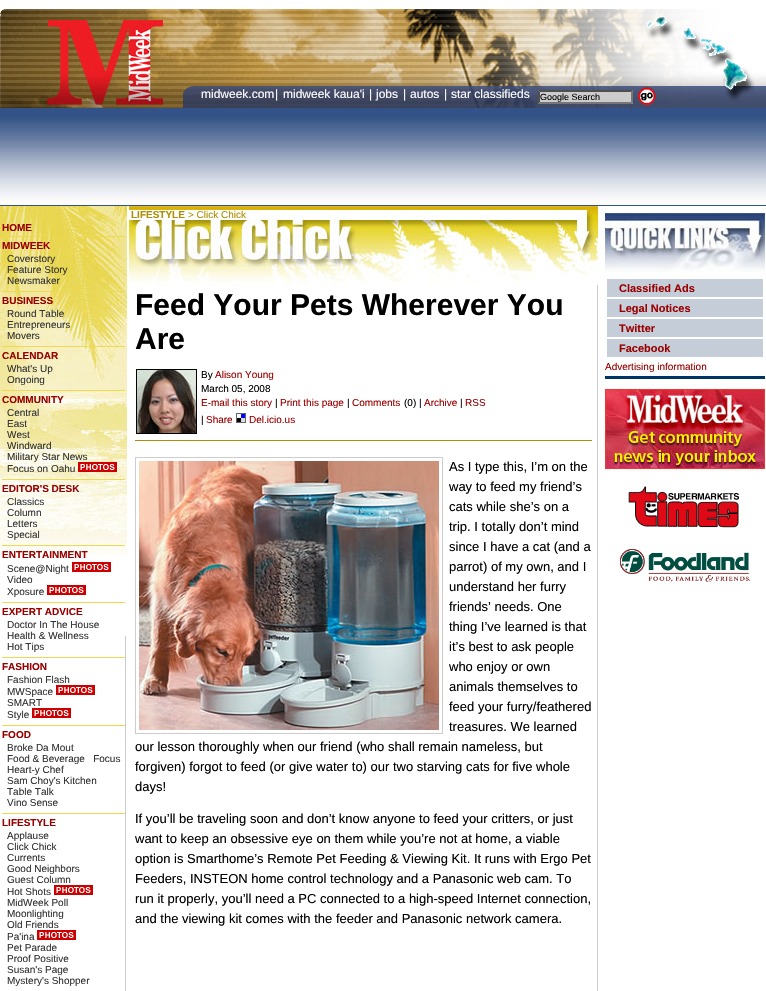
#include "include/core/SkBlurTypes.h"
#include "include/core/SkCanvas.h"
#include "include/core/SkData.h"
#include "include/core/SkFont.h"
#include "include/core/SkFontMgr.h"
#include "include/core/SkImage.h"
#include "include/core/SkMaskFilter.h"
#include "include/core/SkPaint.h"
#include "include/core/SkPathBuilder.h"
#include "include/core/SkTextBlob.h"
#include "include/effects/SkDashPathEffect.h"
#include "include/effects/SkGradientShader.h"
#include "include/utils/SkParsePath.h"

extern sk_sp<SkFontMgr> fontMgr;

void draw(SkCanvas* canvas) {
  SkPaint p;
  p.setAntiAlias(true);
  canvas->clear(SK_ColorWHITE);
  canvas->drawImageRect(SkImages::DeferredFromEncodedData(SkData::MakeFromFileName("images/1.png")), SkRect::MakeLTRB(0, 206, 766, 991), SkSamplingOptions());
  canvas->drawImageRect(SkImages::DeferredFromEncodedData(SkData::MakeFromFileName("images/2.png")), SkRect::MakeLTRB(0, 8, 766, 108), SkSamplingOptions());
  p.setColor(SkColorSetRGB(204, 204, 204));
  canvas->drawRect(SkRect::MakeLTRB(538, 90, 633, 104), p);
  p.setColor(SkColorSetRGB(79, 79, 79));
  canvas->drawPath(SkPathBuilder().moveTo(538, 90).lineTo(633, 90).lineTo(631, 92).lineTo(540, 92).close().detach(), p);
  p.setColor(SkColorSetRGB(118, 118, 118));
  canvas->drawPath(SkPathBuilder().moveTo(633, 90).lineTo(633, 104).lineTo(631, 102).lineTo(631, 92).close().detach(), p);
  canvas->drawPath(SkPathBuilder().moveTo(633, 104).lineTo(538, 104).lineTo(540, 102).lineTo(631, 102).close().detach(), p);
  p.setColor(SkColorSetRGB(79, 79, 79));
  canvas->drawPath(SkPathBuilder().moveTo(538, 104).lineTo(538, 90).lineTo(540, 92).lineTo(540, 102).close().detach(), p);
  canvas->drawImageRect(SkImages::DeferredFromEncodedData(SkData::MakeFromFileName("images/3.png")), SkRect::MakeLTRB(638, 87, 656, 105), SkSamplingOptions());
  canvas->drawImageRect(SkImages::DeferredFromEncodedData(SkData::MakeFromFileName("images/4.png")), SkRect::MakeLTRB(0, 108, 766, 206), SkSamplingOptions());
  canvas->drawImageRect(SkImages::DeferredFromEncodedData(SkData::MakeFromFileName("images/5.png")), SkRect::MakeLTRB(0, 206, 127, 636), SkSamplingOptions());
  p.setColor(SkColorSetRGB(237, 217, 82));
  canvas->drawRect(SkRect::MakeLTRB(2, 236, 125, 237), p);
  canvas->drawRect(SkRect::MakeLTRB(2, 291, 125, 292), p);
  canvas->drawRect(SkRect::MakeLTRB(2, 346, 125, 347), p);
  canvas->drawRect(SkRect::MakeLTRB(2, 390, 125, 391), p);
  canvas->drawRect(SkRect::MakeLTRB(2, 479, 125, 480), p);
  canvas->drawRect(SkRect::MakeLTRB(2, 545, 125, 546), p);
  canvas->drawRect(SkRect::MakeLTRB(2, 602, 125, 603), p);
  canvas->drawImageRect(SkImages::DeferredFromEncodedData(SkData::MakeFromFileName("images/6.png")), SkRect::MakeLTRB(72, 562, 111, 572), SkSamplingOptions());
  canvas->drawImageRect(SkImages::DeferredFromEncodedData(SkData::MakeFromFileName("images/6.png")), SkRect::MakeLTRB(47, 585, 86, 595), SkSamplingOptions());
  canvas->drawRect(SkRect::MakeLTRB(2, 657, 125, 658), p);
  canvas->drawRect(SkRect::MakeLTRB(2, 725, 125, 726), p);
  canvas->drawImageRect(SkImages::DeferredFromEncodedData(SkData::MakeFromFileName("images/6.png")), SkRect::MakeLTRB(56, 685, 95, 695), SkSamplingOptions());
  canvas->drawImageRect(SkImages::DeferredFromEncodedData(SkData::MakeFromFileName("images/6.png")), SkRect::MakeLTRB(32, 708, 71, 718), SkSamplingOptions());
  canvas->drawRect(SkRect::MakeLTRB(2, 813, 125, 814), p);
  canvas->drawImageRect(SkImages::DeferredFromEncodedData(SkData::MakeFromFileName("images/6.png")), SkRect::MakeLTRB(54, 885, 93, 895), SkSamplingOptions());
  canvas->drawImageRect(SkImages::DeferredFromEncodedData(SkData::MakeFromFileName("images/6.png")), SkRect::MakeLTRB(37, 930, 76, 940), SkSamplingOptions());
  canvas->drawImageRect(SkImages::DeferredFromEncodedData(SkData::MakeFromFileName("images/7.png")), SkRect::MakeLTRB(129, 206, 598, 285), SkSamplingOptions());
  p.setColor(SkColorSetRGB(175, 141, 4));
  canvas->drawRect(SkRect::MakeLTRB(135, 440, 592, 441), p);
  canvas->drawImageRect(SkImages::DeferredFromEncodedData(SkData::MakeFromFileName("images/8.png")), SkRect::MakeLTRB(136, 369, 197, 434), SkSamplingOptions());
  canvas->drawImageRect(SkImages::DeferredFromEncodedData(SkData::MakeFromFileName("images/9.png")), SkRect::MakeLTRB(236, 413, 246, 423), SkSamplingOptions());
  p.setStyle(SkPaint::kStroke_Style);
  p.setStrokeWidth(1);
  p.setColor(SkColorSetRGB(204, 204, 204));
  canvas->drawRect(SkRect::MakeLTRB(135.5f, 457.5f, 442.5f, 733.5f), p);
  canvas->drawImageRect(SkImages::DeferredFromEncodedData(SkData::MakeFromFileName("images/10.png")), SkRect::MakeLTRB(139, 461, 439, 730), SkSamplingOptions());
  p.setStyle(SkPaint::kFill_Style);
  p.setColor(SkColorSetRGB(0, 51, 102));
  canvas->drawRect(SkRect::MakeLTRB(605, 376, 765, 379), p);
  canvas->drawImageRect(SkImages::DeferredFromEncodedData(SkData::MakeFromFileName("images/11.png")), SkRect::MakeLTRB(605, 213, 765, 272), SkSamplingOptions());
  p.setColor(SkColorSetRGB(197, 205, 217));
  canvas->drawRect(SkRect::MakeLTRB(607, 279, 763, 297), p);
  canvas->drawRect(SkRect::MakeLTRB(607, 299, 763, 317), p);
  canvas->drawRect(SkRect::MakeLTRB(607, 319, 763, 337), p);
  canvas->drawRect(SkRect::MakeLTRB(607, 339, 763, 357), p);
  canvas->drawImageRect(SkImages::DeferredFromEncodedData(SkData::MakeFromFileName("images/12.png")), SkRect::MakeLTRB(605, 389, 765, 469), SkSamplingOptions());
  canvas->drawImageRect(SkImages::DeferredFromEncodedData(SkData::MakeFromFileName("images/13.png")), SkRect::MakeLTRB(628, 486, 739, 528), SkSamplingOptions());
  canvas->drawImageRect(SkImages::DeferredFromEncodedData(SkData::MakeFromFileName("images/14.png")), SkRect::MakeLTRB(620, 549, 750, 582), SkSamplingOptions());
  SkFont font1(fontMgr->matchFamilyStyle("Liberation Sans", SkFontStyle::Normal()), 12);
  font1.setSubpixel(true);
  p.setColor(SK_ColorWHITE);
  canvas->drawString("midweek.com", 201, 98, font1, p);
  canvas->drawString("|", 275, 98, font1, p);
  canvas->drawString("midweek kaua'i", 283, 98, font1, p);
  canvas->drawString("|", 369, 98, font1, p);
  canvas->drawString("jobs", 376, 98, font1, p);
  canvas->drawString("|", 403, 98, font1, p);
  canvas->drawString("autos", 410, 98, font1, p);
  canvas->drawString("|", 444, 98, font1, p);
  canvas->drawString("star classifieds", 451, 98, font1, p);
  SkFont font2(fontMgr->matchFamilyStyle("Liberation Sans", SkFontStyle::Normal()), 9);
  font2.setSubpixel(true);
  p.setColor(SK_ColorBLACK);
  canvas->drawString("Google Search", 540, 100, font2, p);
  SkFont font3(fontMgr->matchFamilyStyle("Liberation Sans", SkFontStyle::Bold()), 10);
  font3.setSubpixel(true);
  p.setColor(SkColorSetRGB(153, 0, 0));
  canvas->drawString("HOME", 2, 231, font3, p);
  canvas->drawString("MIDWEEK", 2, 249, font3, p);
  SkFont font4(fontMgr->matchFamilyStyle("Liberation Sans", SkFontStyle::Normal()), 10);
  font4.setSubpixel(true);
  p.setColor(SkColorSetRGB(51, 51, 51));
  canvas->drawString("Coverstory", 7, 262, font4, p);
  canvas->drawString("Feature Story", 7, 273, font4, p);
  canvas->drawString("Newsmaker", 7, 284, font4, p);
  p.setColor(SkColorSetRGB(153, 0, 0));
  canvas->drawString("BUSINESS", 2, 304, font3, p);
  p.setColor(SkColorSetRGB(51, 51, 51));
  canvas->drawString("Round Table", 7, 317, font4, p);
  canvas->drawString("Entrepreneurs", 7, 328, font4, p);
  canvas->drawString("Movers", 7, 339, font4, p);
  p.setColor(SkColorSetRGB(153, 0, 0));
  canvas->drawString("CALENDAR", 2, 359, font3, p);
  p.setColor(SkColorSetRGB(51, 51, 51));
  canvas->drawString("What's Up", 7, 372, font4, p);
  canvas->drawString("Ongoing", 7, 383, font4, p);
  p.setColor(SkColorSetRGB(153, 0, 0));
  canvas->drawString("COMMUNITY", 2, 403, font3, p);
  p.setColor(SkColorSetRGB(51, 51, 51));
  canvas->drawString("Central", 7, 416, font4, p);
  canvas->drawString("East", 7, 427, font4, p);
  canvas->drawString("West", 7, 438, font4, p);
  canvas->drawString("Windward", 7, 449, font4, p);
  canvas->drawString("Military Star News", 7, 460, font4, p);
  canvas->drawString("Focus on Oahu", 7, 472, font4, p);
  canvas->drawImageRect(SkImages::DeferredFromEncodedData(SkData::MakeFromFileName("images/6.png")), SkRect::MakeLTRB(78, 462, 117, 472), SkSamplingOptions());
  p.setColor(SkColorSetRGB(153, 0, 0));
  canvas->drawString("EDITOR'S DESK", 2, 492, font3, p);
  p.setColor(SkColorSetRGB(51, 51, 51));
  canvas->drawString("Classics", 7, 505, font4, p);
  canvas->drawString("Column", 7, 516, font4, p);
  canvas->drawString("Letters", 7, 527, font4, p);
  canvas->drawString("Special", 7, 538, font4, p);
  p.setColor(SkColorSetRGB(153, 0, 0));
  canvas->drawString("ENTERTAINMENT", 2, 558, font3, p);
  p.setColor(SkColorSetRGB(51, 51, 51));
  canvas->drawString("Scene@Night", 7, 572, font4, p);
  canvas->drawString("Video", 7, 583, font4, p);
  canvas->drawString("Xposure", 7, 595, font4, p);
  p.setColor(SkColorSetRGB(153, 0, 0));
  canvas->drawString("EXPERT ADVICE", 2, 615, font3, p);
  p.setColor(SkColorSetRGB(51, 51, 51));
  canvas->drawString("Doctor In The House", 7, 628, font4, p);
  canvas->drawString("Health & Wellness", 7, 639, font4, p);
  canvas->drawString("Hot Tips", 7, 650, font4, p);
  p.setColor(SkColorSetRGB(153, 0, 0));
  canvas->drawString("FASHION", 2, 670, font3, p);
  p.setColor(SkColorSetRGB(51, 51, 51));
  canvas->drawString("Fashion Flash", 7, 683, font4, p);
  canvas->drawString("MWSpace", 7, 695, font4, p);
  canvas->drawString("SMART", 7, 706, font4, p);
  canvas->drawString("Style", 7, 718, font4, p);
  p.setColor(SkColorSetRGB(153, 0, 0));
  canvas->drawString("FOOD", 2, 738, font3, p);
  p.setColor(SkColorSetRGB(51, 51, 51));
  canvas->drawString("Broke Da Mout", 7, 751, font4, p);
  canvas->drawString("Food & Beverage   Focus", 7, 762, font4, p);
  canvas->drawString("Heart-y Chef", 7, 773, font4, p);
  canvas->drawString("Sam Choy's Kitchen", 7, 784, font4, p);
  canvas->drawString("Table Talk", 7, 795, font4, p);
  canvas->drawString("Vino Sense", 7, 806, font4, p);
  p.setColor(SkColorSetRGB(153, 0, 0));
  canvas->drawString("LIFESTYLE", 2, 826, font3, p);
  p.setColor(SkColorSetRGB(51, 51, 51));
  canvas->drawString("Applause", 7, 839, font4, p);
  canvas->drawString("Click Chick", 7, 850, font4, p);
  canvas->drawString("Currents", 7, 861, font4, p);
  canvas->drawString("Good Neighbors", 7, 872, font4, p);
  canvas->drawString("Guest Column", 7, 883, font4, p);
  canvas->drawString("Hot Shots", 7, 895, font4, p);
  canvas->drawString("MidWeek Poll", 7, 906, font4, p);
  canvas->drawString("Moonlighting", 7, 917, font4, p);
  canvas->drawString("Old Friends", 7, 928, font4, p);
  canvas->drawString("Pa'ina", 7, 940, font4, p);
  canvas->drawString("Pet Parade", 7, 951, font4, p);
  canvas->drawString("Proof Positive", 7, 962, font4, p);
  canvas->drawString("Susan's Page", 7, 973, font4, p);
  canvas->drawString("Mystery's Shopper", 7, 984, font4, p);
  p.setColor(SkColorSetRGB(175, 141, 4));
  canvas->drawString("LIFESTYLE", 131, 218, font3, p);
  canvas->drawString("> Click Chick", 188, 218, font4, p);
  SkFont font5(fontMgr->matchFamilyStyle("Liberation Sans", SkFontStyle::Bold()), 30);
  font5.setSubpixel(true);
  p.setColor(SK_ColorBLACK);
  canvas->drawString("Feed Your Pets Wherever You", 135, 315, font5, p);
  canvas->drawString("Are", 135, 349, font5, p);
  canvas->drawString("By", 201, 378, font4, p);
  p.setColor(SkColorSetRGB(153, 0, 0));
  canvas->drawString("Alison Young", 215, 378, font4, p);
  p.setColor(SK_ColorBLACK);
  canvas->drawString("March 05, 2008", 201, 392, font4, p);
  p.setColor(SkColorSetRGB(153, 0, 0));
  canvas->drawString("E-mail this story", 201, 406, font4, p);
  p.setColor(SK_ColorBLACK);
  canvas->drawString("|", 275, 406, font4, p);
  p.setColor(SkColorSetRGB(153, 0, 0));
  canvas->drawString("Print this page", 280, 406, font4, p);
  p.setColor(SK_ColorBLACK);
  canvas->drawString("|", 347, 406, font4, p);
  p.setColor(SkColorSetRGB(153, 0, 0));
  canvas->drawString("Comments", 352, 406, font4, p);
  p.setColor(SK_ColorBLACK);
  canvas->drawString("(0) |", 404, 406, font4, p);
  p.setColor(SkColorSetRGB(153, 0, 0));
  canvas->drawString("Archive", 424, 406, font4, p);
  p.setColor(SK_ColorBLACK);
  canvas->drawString("|", 460, 406, font4, p);
  p.setColor(SkColorSetRGB(153, 0, 0));
  canvas->drawString("RSS", 465, 406, font4, p);
  p.setColor(SK_ColorBLACK);
  canvas->drawString("|", 201, 423, font4, p);
  p.setColor(SkColorSetRGB(153, 0, 0));
  canvas->drawString("Share", 206, 423, font4, p);
  canvas->drawString("Del.icio.us", 249, 423, font4, p);
  SkFont font6(fontMgr->matchFamilyStyle("Liberation Sans", SkFontStyle::Normal()), 13);
  font6.setSubpixel(true);
  p.setColor(SK_ColorBLACK);
  canvas->drawString("As I type this, I’m on the", 449, 471, font6, p);
  canvas->drawString("way to feed my friend’s", 449, 491, font6, p);
  canvas->drawString("cats while she’s on a", 449, 511, font6, p);
  canvas->drawString("trip. I totally don’t mind", 449, 531, font6, p);
  canvas->drawString("since I have a cat (and a", 449, 551, font6, p);
  canvas->drawString("parrot) of my own, and I", 449, 571, font6, p);
  canvas->drawString("understand her furry", 449, 591, font6, p);
  canvas->drawString("friends’ needs. One", 449, 611, font6, p);
  canvas->drawString("thing I’ve learned is that", 449, 631, font6, p);
  canvas->drawString("it’s best to ask people", 449, 651, font6, p);
  canvas->drawString("who enjoy or own", 449, 671, font6, p);
  canvas->drawString("animals themselves to", 449, 691, font6, p);
  canvas->drawString("feed your furry/feathered", 449, 711, font6, p);
  canvas->drawString("treasures. We learned", 449, 731, font6, p);
  canvas->drawString("our lesson thoroughly when our friend (who shall remain nameless, but", 135, 751, font6, p);
  canvas->drawString("forgiven) forgot to feed (or give water to) our two starving cats for five whole", 135, 771, font6, p);
  canvas->drawString("days!", 135, 791, font6, p);
  canvas->drawString("If you’ll be traveling soon and don’t know anyone to feed your critters, or just", 135, 823, font6, p);
  canvas->drawString("want to keep an obsessive eye on them while you’re not at home, a viable", 135, 843, font6, p);
  canvas->drawString("option is Smarthome’s Remote Pet Feeding & Viewing Kit. It runs with Ergo Pet", 135, 863, font6, p);
  canvas->drawString("Feeders, INSTEON home control technology and a Panasonic web cam. To", 135, 883, font6, p);
  canvas->drawString("run it properly, you’ll need a PC connected to a high-speed Internet connection,", 135, 903, font6, p);
  canvas->drawString("and the viewing kit comes with the feeder and Panasonic network camera.", 135, 923, font6, p);
  SkFont font7(fontMgr->matchFamilyStyle("Liberation Sans", SkFontStyle::Bold()), 11);
  font7.setSubpixel(true);
  p.setColor(SkColorSetRGB(153, 0, 0));
  canvas->drawString("Classified Ads", 619, 292, font7, p);
  canvas->drawString("Legal Notices", 619, 312, font7, p);
  canvas->drawString("Twitter", 619, 332, font7, p);
  canvas->drawString("Facebook", 619, 352, font7, p);
  canvas->drawString("Advertising information", 605, 370, font4, p);
}
